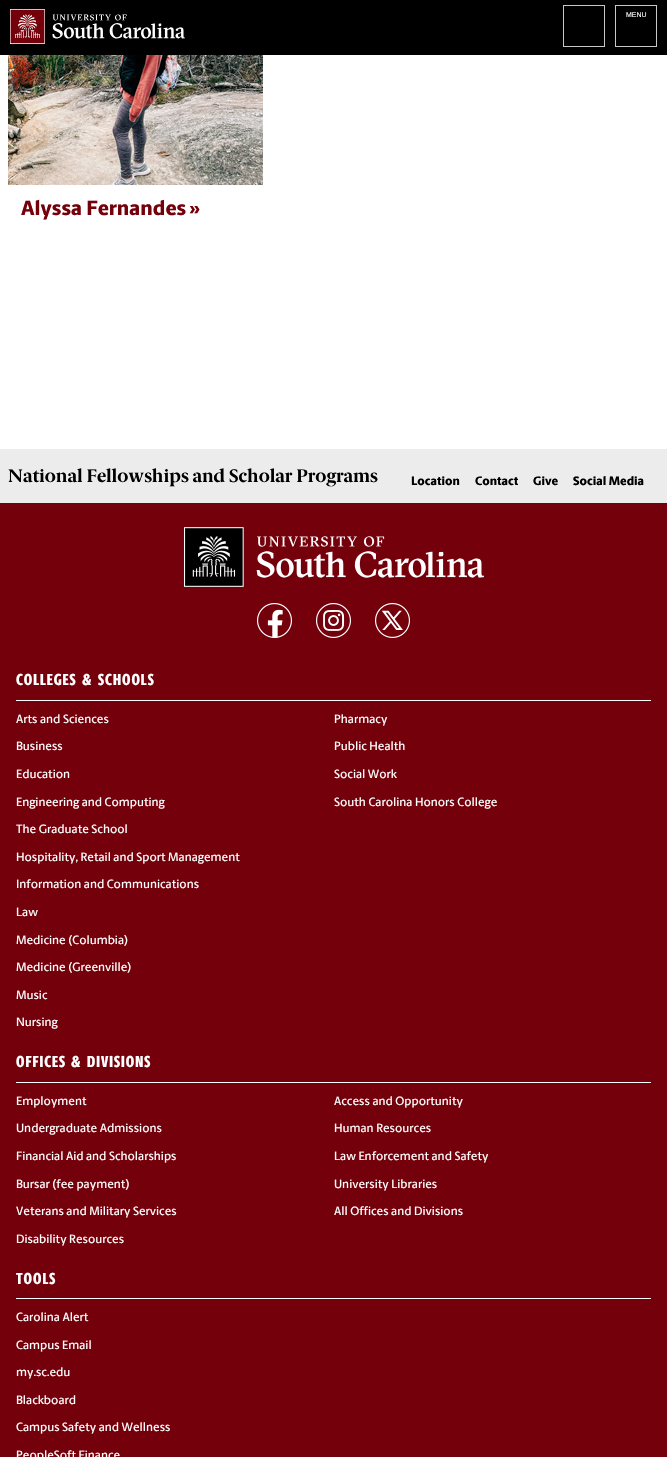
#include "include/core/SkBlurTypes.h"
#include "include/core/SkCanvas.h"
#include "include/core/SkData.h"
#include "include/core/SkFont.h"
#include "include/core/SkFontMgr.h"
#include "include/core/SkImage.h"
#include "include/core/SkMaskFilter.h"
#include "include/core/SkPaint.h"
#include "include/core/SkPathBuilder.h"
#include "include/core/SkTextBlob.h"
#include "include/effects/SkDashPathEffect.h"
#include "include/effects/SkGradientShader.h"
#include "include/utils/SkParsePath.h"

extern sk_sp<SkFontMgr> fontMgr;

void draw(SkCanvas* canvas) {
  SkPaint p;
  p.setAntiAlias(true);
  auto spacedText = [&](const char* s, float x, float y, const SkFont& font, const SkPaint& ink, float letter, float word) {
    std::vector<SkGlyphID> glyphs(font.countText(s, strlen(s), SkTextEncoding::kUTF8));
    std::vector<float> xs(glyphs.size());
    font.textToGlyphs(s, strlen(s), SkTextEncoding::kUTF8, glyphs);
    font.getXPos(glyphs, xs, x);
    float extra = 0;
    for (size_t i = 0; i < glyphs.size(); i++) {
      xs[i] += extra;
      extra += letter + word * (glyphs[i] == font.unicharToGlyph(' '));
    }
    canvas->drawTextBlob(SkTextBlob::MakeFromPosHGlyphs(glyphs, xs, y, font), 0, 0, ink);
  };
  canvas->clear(SK_ColorWHITE);
  p.setColor(SK_ColorBLACK);
  canvas->drawRect(SkRect::MakeLTRB(0, 0, 667, 55), p);
  canvas->drawImageRect(SkImages::DeferredFromEncodedData(SkData::MakeFromFileName("images/1.png")), SkRect::MakeLTRB(10, 9, 185, 44), SkSamplingOptions());
  p.setStyle(SkPaint::kStroke_Style);
  p.setStrokeWidth(1);
  p.setColor(SkColorSetRGB(199, 199, 199));
  canvas->drawRect(SkRect::MakeLTRB(563.5f, 5.5f, 604.5f, 46.5f), p);
  canvas->drawRect(SkRect::MakeLTRB(615.5f, 5.5f, 656.5f, 46.5f), p);
  canvas->drawImageRect(SkImages::DeferredFromEncodedData(SkData::MakeFromFileName("images/2.png")), SkRect::MakeLTRB(8, 55, 263, 185), SkSamplingOptions());
  p.setStyle(SkPaint::kFill_Style);
  p.setColor(SkColorSetRGB(236, 236, 236));
  canvas->drawRect(SkRect::MakeLTRB(0, 449, 667, 503), p);
  p.setColor(SkColorSetRGB(115, 0, 10));
  canvas->drawRect(SkRect::MakeLTRB(0, 503, 667, 1457), p);
  canvas->drawImageRect(SkImages::DeferredFromEncodedData(SkData::MakeFromFileName("images/3.png")), SkRect::MakeLTRB(184, 527, 484, 587), SkSamplingOptions());
  canvas->drawImageRect(SkImages::DeferredFromEncodedData(SkData::MakeFromFileName("images/4.png")), SkRect::MakeLTRB(257, 603, 292, 638), SkSamplingOptions());
  canvas->drawImageRect(SkImages::DeferredFromEncodedData(SkData::MakeFromFileName("images/5.png")), SkRect::MakeLTRB(316, 603, 351, 638), SkSamplingOptions());
  canvas->drawImageRect(SkImages::DeferredFromEncodedData(SkData::MakeFromFileName("images/6.png")), SkRect::MakeLTRB(375, 603, 410, 638), SkSamplingOptions());
  p.setColor(SK_ColorWHITE);
  canvas->drawRect(SkRect::MakeLTRB(16, 700, 651, 701), p);
  canvas->drawRect(SkRect::MakeLTRB(16, 1082, 651, 1083), p);
  canvas->drawRect(SkRect::MakeLTRB(16, 1298, 651, 1299), p);
  SkFont font1(fontMgr->matchFamilyStyle("Liberation Sans", SkFontStyle::Normal()), 7);
  font1.setSubpixel(true);
  canvas->drawString("MENU", 626, 17, font1, p);
  SkFont font2(fontMgr->matchFamilyStyle("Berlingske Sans", SkFontStyle(800, SkFontStyle::kNormal_Width, SkFontStyle::kUpright_Slant)), 20.75f);
  font2.setSubpixel(true);
  p.setColor(SkColorSetRGB(115, 0, 10));
  canvas->drawString("Alyssa Fernandes", 21, 215, font2, p);
  canvas->drawString("»", 189, 215, font2, p);
  SkFont font3(fontMgr->matchFamilyStyle("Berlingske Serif", SkFontStyle::Bold()), 18.2f);
  font3.setSubpixel(true);
  p.setColor(SK_ColorBLACK);
  canvas->drawString("National Fellowships and Scholar Programs", 8, 482, font3, p);
  SkFont font4(fontMgr->matchFamilyStyle("Berlingske Sans", SkFontStyle(800, SkFontStyle::kNormal_Width, SkFontStyle::kUpright_Slant)), 12.25f);
  font4.setSubpixel(true);
  canvas->drawString("Location", 411, 485, font4, p);
  canvas->drawString("Contact", 475, 485, font4, p);
  canvas->drawString("Give", 533, 485, font4, p);
  canvas->drawString("Social Media", 573, 485, font4, p);
  SkFont font5(fontMgr->matchFamilyStyle("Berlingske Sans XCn", SkFontStyle(800, SkFontStyle::kNormal_Width, SkFontStyle::kUpright_Slant)), 16);
  font5.setSubpixel(true);
  p.setColor(SK_ColorWHITE);
  spacedText("COLLEGES", 16, 685, font5, p, 1, 0);
  spacedText("&", 82, 685, font5, p, 1, 0);
  spacedText("SCHOOLS", 98, 685, font5, p, 1, 0);
  SkFont font6(fontMgr->matchFamilyStyle("Berlingske Sans", SkFontStyle(500, SkFontStyle::kNormal_Width, SkFontStyle::kUpright_Slant)), 12);
  font6.setSubpixel(true);
  canvas->drawString("Arts and Sciences", 16, 723, font6, p);
  canvas->drawString("Business", 16, 750, font6, p);
  canvas->drawString("Education", 16, 778, font6, p);
  canvas->drawString("Engineering and Computing", 16, 806, font6, p);
  canvas->drawString("The Graduate School", 16, 833, font6, p);
  canvas->drawString("Hospitality, Retail and Sport Management", 16, 861, font6, p);
  canvas->drawString("Pharmacy", 334, 723, font6, p);
  canvas->drawString("Public Health", 334, 750, font6, p);
  canvas->drawString("Social Work", 334, 778, font6, p);
  canvas->drawString("South Carolina Honors College", 334, 806, font6, p);
  canvas->drawString("Information and Communications", 16, 888, font6, p);
  canvas->drawString("Law", 16, 916, font6, p);
  canvas->drawString("Medicine (Columbia)", 16, 944, font6, p);
  canvas->drawString("Medicine (Greenville)", 16, 971, font6, p);
  canvas->drawString("Music", 16, 999, font6, p);
  canvas->drawString("Nursing", 16, 1026, font6, p);
  spacedText("OFFICES", 16, 1067, font5, p, 1, 0);
  spacedText("&", 71, 1067, font5, p, 1, 0);
  spacedText("DIVISIONS", 87, 1067, font5, p, 1, 0);
  canvas->drawString("Employment", 16, 1105, font6, p);
  canvas->drawString("Undergraduate Admissions", 16, 1132, font6, p);
  canvas->drawString("Financial Aid and Scholarships", 16, 1160, font6, p);
  canvas->drawString("Bursar (fee payment)", 16, 1188, font6, p);
  canvas->drawString("Veterans and Military Services", 16, 1215, font6, p);
  canvas->drawString("Disability Resources", 16, 1243, font6, p);
  canvas->drawString("Access and Opportunity", 334, 1105, font6, p);
  canvas->drawString("Human Resources", 334, 1132, font6, p);
  canvas->drawString("Law Enforcement and Safety", 334, 1160, font6, p);
  canvas->drawString("University Libraries", 334, 1188, font6, p);
  canvas->drawString("All Offices and Divisions", 334, 1215, font6, p);
  spacedText("TOOLS", 16, 1284, font5, p, 1, 0);
  canvas->drawString("Carolina Alert", 16, 1321, font6, p);
  canvas->drawString("Campus Email", 16, 1349, font6, p);
  canvas->drawString("my.sc.edu", 16, 1376, font6, p);
  canvas->drawString("Blackboard", 16, 1404, font6, p);
  canvas->drawString("Campus Safety and Wellness", 16, 1431, font6, p);
  canvas->drawString("PeopleSoft Finance", 16, 1459, font6, p);
}
